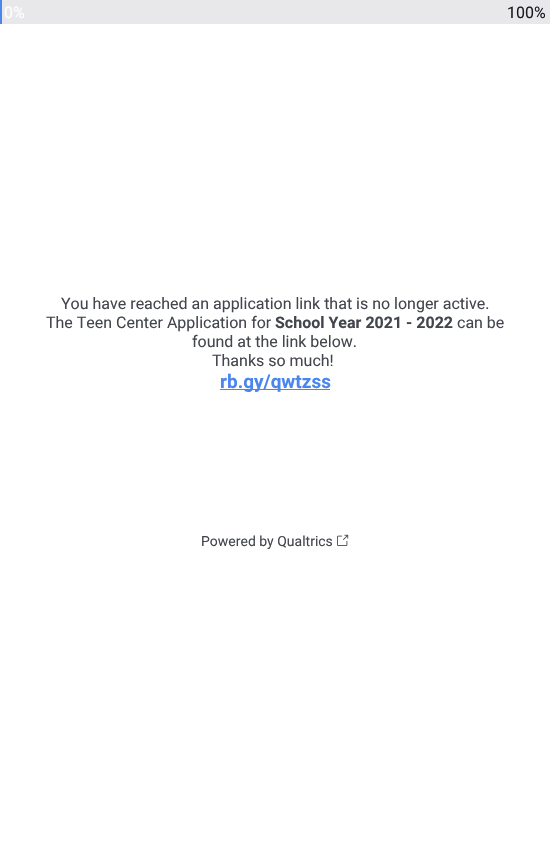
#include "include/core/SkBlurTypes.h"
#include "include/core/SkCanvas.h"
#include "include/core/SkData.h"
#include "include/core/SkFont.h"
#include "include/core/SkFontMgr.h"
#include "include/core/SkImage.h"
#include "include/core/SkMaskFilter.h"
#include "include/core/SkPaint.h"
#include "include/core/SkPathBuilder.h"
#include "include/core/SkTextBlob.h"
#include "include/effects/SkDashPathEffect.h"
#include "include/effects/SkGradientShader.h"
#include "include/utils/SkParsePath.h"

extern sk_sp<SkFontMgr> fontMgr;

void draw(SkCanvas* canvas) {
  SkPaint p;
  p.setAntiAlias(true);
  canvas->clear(SK_ColorWHITE);
  p.setColor(SkColorSetRGB(75, 134, 238));
  canvas->drawRect(SkRect::MakeLTRB(0, 0, 2, 24), p);
  p.setColor(SkColorSetRGB(232, 232, 235));
  canvas->drawRect(SkRect::MakeLTRB(2, 0, 550, 24), p);
  p.setColor(SkColorSetRGB(75, 134, 238));
  canvas->drawRect(SkRect::MakeLTRB(220, 389, 330, 390), p);
  canvas->drawImageRect(SkImages::DeferredFromEncodedData(SkData::MakeFromFileName("images/1.png")), SkRect::MakeLTRB(337, 534, 349, 546), SkSamplingOptions());
  SkFont font1(fontMgr->matchFamilyStyle("Roboto", SkFontStyle::Normal()), 16);
  font1.setSubpixel(true);
  p.setColor(SK_ColorWHITE);
  canvas->drawString("0%", 4, 18, font1, p);
  p.setColor(SkColorSetRGB(27, 27, 32));
  canvas->drawString("100%", 507, 18, font1, p);
  p.setColor(SkColorSetRGB(67, 70, 77));
  canvas->drawString("You have reached an application link that is no longer active.", 61, 309, font1, p);
  canvas->drawString("The Teen Center Application for", 46, 328, font1, p);
  SkFont font2(fontMgr->matchFamilyStyle("Roboto", SkFontStyle::Bold()), 16);
  font2.setSubpixel(true);
  canvas->drawString("School Year 2021 - 2022", 275, 328, font2, p);
  canvas->drawString("can be", 457, 328, font1, p);
  canvas->drawString("found at the link below.", 192, 347, font1, p);
  canvas->drawString("Thanks so much!", 212, 366, font1, p);
  SkFont font3(fontMgr->matchFamilyStyle("Roboto", SkFontStyle::Bold()), 19);
  font3.setSubpixel(true);
  p.setColor(SkColorSetRGB(75, 134, 238));
  canvas->drawString("rb.gy/qwtzss", 220, 388, font3, p);
  SkFont font4(fontMgr->matchFamilyStyle("Roboto", SkFontStyle::Normal()), 14);
  font4.setSubpixel(true);
  p.setColor(SkColorSetRGB(67, 70, 77));
  canvas->drawString("Powered by Qualtrics", 201, 546, font4, p);
}
